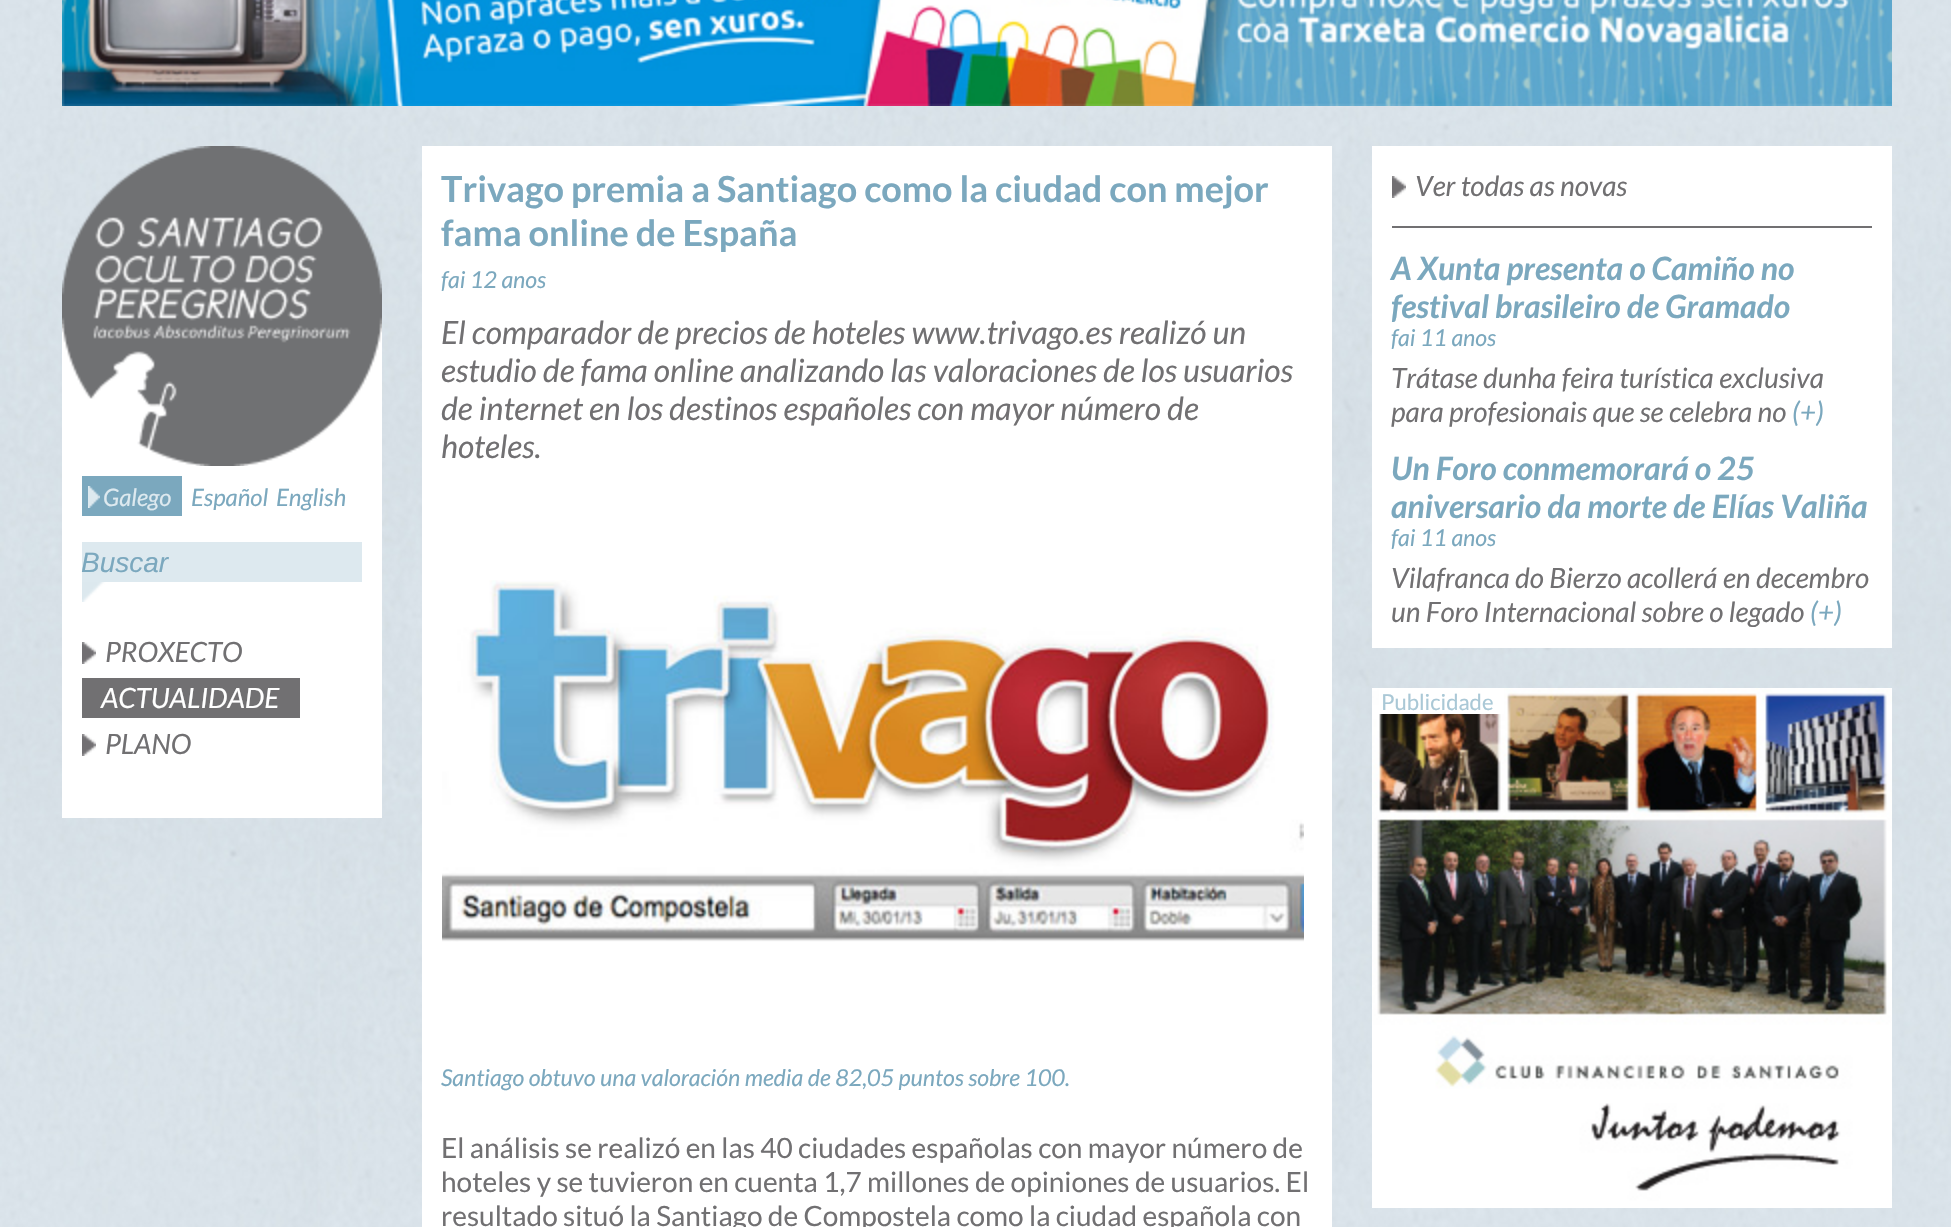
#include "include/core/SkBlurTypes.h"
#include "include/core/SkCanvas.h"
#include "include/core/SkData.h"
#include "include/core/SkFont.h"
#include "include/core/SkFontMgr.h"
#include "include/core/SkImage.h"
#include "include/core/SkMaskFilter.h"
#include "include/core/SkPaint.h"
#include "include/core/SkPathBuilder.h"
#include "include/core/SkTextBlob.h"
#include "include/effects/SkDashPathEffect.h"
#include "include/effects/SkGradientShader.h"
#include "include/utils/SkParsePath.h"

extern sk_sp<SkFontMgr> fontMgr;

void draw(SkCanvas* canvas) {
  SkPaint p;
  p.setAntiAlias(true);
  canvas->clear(SK_ColorWHITE);
  canvas->drawImageRect(SkImages::DeferredFromEncodedData(SkData::MakeFromFileName("images/1.png")), SkRect::MakeLTRB(0, 1114, 1951, 1227), SkSamplingOptions());
  canvas->drawImageRect(SkImages::DeferredFromEncodedData(SkData::MakeFromFileName("images/2.png")), SkRect::MakeLTRB(0, 0, 1951, 1114), SkSamplingOptions());
  canvas->drawImageRect(SkImages::DeferredFromEncodedData(SkData::MakeFromFileName("images/3.png")), SkRect::MakeLTRB(62, 0, 1892, 106), SkSamplingOptions());
  p.setColor(SK_ColorWHITE);
  canvas->drawRect(SkRect::MakeLTRB(62, 317, 382, 818), p);
  canvas->drawImageRect(SkImages::DeferredFromEncodedData(SkData::MakeFromFileName("images/4.png")), SkRect::MakeLTRB(62, 146, 382, 466), SkSamplingOptions());
  p.setColor(SkColorSetRGB(123, 168, 190));
  canvas->drawRect(SkRect::MakeLTRB(82, 476, 182, 516), p);
  canvas->drawImageRect(SkImages::DeferredFromEncodedData(SkData::MakeFromFileName("images/5.png")), SkRect::MakeLTRB(88, 486, 100, 508), SkSamplingOptions());
  p.setColor(SkColorSetRGB(221, 233, 239));
  canvas->drawRect(SkRect::MakeLTRB(82, 542, 362, 582), p);
  canvas->drawImageRect(SkImages::DeferredFromEncodedData(SkData::MakeFromFileName("images/6.png")), SkRect::MakeLTRB(82, 582, 106, 602), SkSamplingOptions());
  canvas->drawImageRect(SkImages::DeferredFromEncodedData(SkData::MakeFromFileName("images/7.png")), SkRect::MakeLTRB(82, 642, 96, 664), SkSamplingOptions());
  p.setColor(SkColorSetRGB(113, 112, 114));
  canvas->drawRect(SkRect::MakeLTRB(82, 678, 300, 718), p);
  canvas->drawImageRect(SkImages::DeferredFromEncodedData(SkData::MakeFromFileName("images/7.png")), SkRect::MakeLTRB(82, 734, 96, 756), SkSamplingOptions());
  p.setColor(SK_ColorWHITE);
  canvas->drawRect(SkRect::MakeLTRB(422, 146, 1332, 1227), p);
  canvas->drawImageRect(SkImages::DeferredFromEncodedData(SkData::MakeFromFileName("images/8.png")), SkRect::MakeLTRB(442, 580, 1304, 942), SkSamplingOptions());
  canvas->drawRect(SkRect::MakeLTRB(1372, 146, 1892, 648), p);
  canvas->drawImageRect(SkImages::DeferredFromEncodedData(SkData::MakeFromFileName("images/7.png")), SkRect::MakeLTRB(1392, 176, 1406, 198), SkSamplingOptions());
  p.setColor(SkColorSetRGB(113, 112, 114));
  canvas->drawRect(SkRect::MakeLTRB(1392, 226, 1872, 228), p);
  canvas->drawImageRect(SkImages::DeferredFromEncodedData(SkData::MakeFromFileName("images/9.png")), SkRect::MakeLTRB(1372, 688, 1892, 1208), SkSamplingOptions());
  p.setColor(SK_ColorWHITE);
  canvas->drawRect(SkRect::MakeLTRB(1379, 688, 1504, 714), p);
  SkFont font1(fontMgr->matchFamilyStyle("Lato", SkFontStyle::Italic()), 24);
  font1.setSubpixel(true);
  p.setColor(SkColorSetRGB(221, 233, 239));
  canvas->drawString("Galego", 103, 506, font1, p);
  p.setColor(SkColorSetRGB(123, 168, 190));
  canvas->drawString("Español", 191, 506, font1, p);
  canvas->drawString("English", 276, 506, font1, p);
  SkFont font2(fontMgr->matchFamilyStyle("Liberation Sans", SkFontStyle::Italic()), 28);
  font2.setSubpixel(true);
  canvas->drawString("Buscar", 81, 572, font2, p);
  SkFont font3(fontMgr->matchFamilyStyle("Lato", SkFontStyle::Italic()), 28);
  font3.setSubpixel(true);
  p.setColor(SkColorSetRGB(113, 112, 114));
  canvas->drawString("PROXECTO", 105, 662, font3, p);
  p.setColor(SK_ColorWHITE);
  canvas->drawString("ACTUALIDADE", 101, 708, font3, p);
  p.setColor(SkColorSetRGB(113, 112, 114));
  canvas->drawString("PLANO", 105, 754, font3, p);
  SkFont font4(fontMgr->matchFamilyStyle("Lato", SkFontStyle::Bold()), 36);
  font4.setSubpixel(true);
  p.setColor(SkColorSetRGB(123, 168, 190));
  canvas->drawString("Trivago premia a Santiago como la ciudad con mejor", 441, 202, font4, p);
  canvas->drawString("fama online de España", 441, 246, font4, p);
  SkFont font5(fontMgr->matchFamilyStyle("Lato", SkFontStyle::Italic()), 23.25f);
  font5.setSubpixel(true);
  canvas->drawString("fai 12 anos", 441, 288, font5, p);
  SkFont font6(fontMgr->matchFamilyStyle("Lato", SkFontStyle::Italic()), 32);
  font6.setSubpixel(true);
  p.setColor(SkColorSetRGB(113, 112, 114));
  canvas->drawString("El comparador de precios de hoteles www.trivago.es realizó un", 441, 344, font6, p);
  canvas->drawString("estudio de fama online analizando las valoraciones de los usuarios", 441, 382, font6, p);
  canvas->drawString("de internet en los destinos españoles con mayor número de", 441, 420, font6, p);
  canvas->drawString("hoteles.", 441, 458, font6, p);
  p.setColor(SkColorSetRGB(123, 168, 190));
  canvas->drawString("Santiago obtuvo una valoración media de 82,05 puntos sobre 100.", 441, 1086, font5, p);
  SkFont font7(fontMgr->matchFamilyStyle("Lato", SkFontStyle::Normal()), 28);
  font7.setSubpixel(true);
  p.setColor(SkColorSetRGB(113, 112, 114));
  canvas->drawString("El análisis se realizó en las 40 ciudades españolas con mayor número de", 441, 1158, font7, p);
  canvas->drawString("hoteles y se tuvieron en cuenta 1,7 millones de opiniones de usuarios. El", 441, 1192, font7, p);
  canvas->drawString("resultado situó la Santiago de Compostela como la ciudad española con", 441, 1226, font7, p);
  canvas->drawString("Ver todas as novas", 1415, 196, font3, p);
  SkFont font8(fontMgr->matchFamilyStyle("Lato", SkFontStyle::BoldItalic()), 32);
  font8.setSubpixel(true);
  p.setColor(SkColorSetRGB(123, 168, 190));
  canvas->drawString("A Xunta presenta o Camiño no", 1391, 280, font8, p);
  canvas->drawString("festival brasileiro de Gramado", 1391, 318, font8, p);
  canvas->drawString("fai 11 anos", 1391, 346, font5, p);
  p.setColor(SkColorSetRGB(113, 112, 114));
  canvas->drawString("Trátase dunha feira turística exclusiva", 1391, 388, font3, p);
  canvas->drawString("para profesionais que se celebra no", 1391, 422, font3, p);
  p.setColor(SkColorSetRGB(123, 168, 190));
  canvas->drawString("(+)", 1792, 422, font3, p);
  canvas->drawString("Un Foro conmemorará o 25", 1391, 480, font8, p);
  canvas->drawString("aniversario da morte de Elías Valiña", 1391, 518, font8, p);
  canvas->drawString("fai 11 anos", 1391, 546, font5, p);
  p.setColor(SkColorSetRGB(113, 112, 114));
  canvas->drawString("Vilafranca do Bierzo acollerá en decembro", 1391, 588, font3, p);
  canvas->drawString("un Foro Internacional sobre o legado", 1391, 622, font3, p);
  p.setColor(SkColorSetRGB(123, 168, 190));
  canvas->drawString("(+)", 1810, 622, font3, p);
  SkFont font9(fontMgr->matchFamilyStyle("Lato", SkFontStyle::Normal()), 22);
  font9.setSubpixel(true);
  p.setColor(SkColorSetRGB(170, 200, 214));
  canvas->drawString("Publicidade", 1381, 710, font9, p);
}
